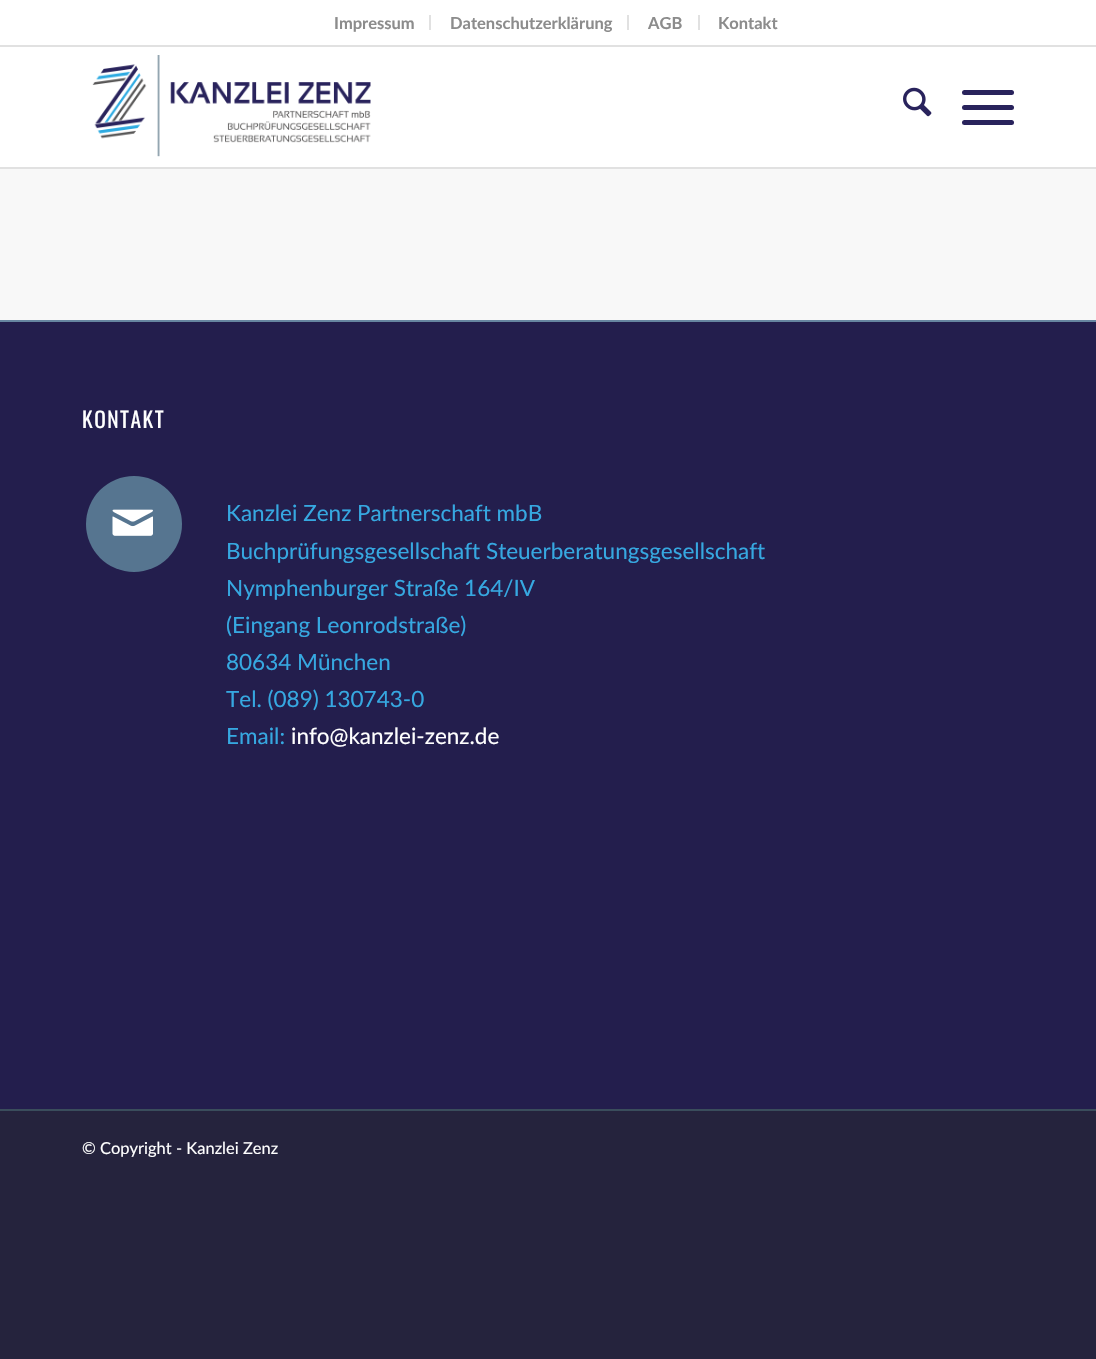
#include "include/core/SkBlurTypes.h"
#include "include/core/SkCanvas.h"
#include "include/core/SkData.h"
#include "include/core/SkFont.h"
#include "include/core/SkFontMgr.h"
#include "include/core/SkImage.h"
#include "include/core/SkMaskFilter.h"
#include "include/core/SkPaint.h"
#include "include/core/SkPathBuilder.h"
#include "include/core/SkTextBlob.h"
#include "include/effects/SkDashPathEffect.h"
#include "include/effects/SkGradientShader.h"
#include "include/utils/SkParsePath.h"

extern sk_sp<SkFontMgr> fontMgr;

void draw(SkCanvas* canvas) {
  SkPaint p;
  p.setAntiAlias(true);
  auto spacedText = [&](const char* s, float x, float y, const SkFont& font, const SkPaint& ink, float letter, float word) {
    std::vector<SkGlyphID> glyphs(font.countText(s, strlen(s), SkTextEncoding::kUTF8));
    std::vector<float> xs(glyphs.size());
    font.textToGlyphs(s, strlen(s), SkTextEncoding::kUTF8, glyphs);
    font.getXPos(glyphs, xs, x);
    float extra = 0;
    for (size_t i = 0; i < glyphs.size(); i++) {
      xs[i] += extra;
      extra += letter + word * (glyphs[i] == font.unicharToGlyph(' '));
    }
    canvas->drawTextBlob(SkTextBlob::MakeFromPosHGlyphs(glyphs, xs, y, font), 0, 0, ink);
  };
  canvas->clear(SkColorSetRGB(37, 35, 61));
  p.setColor(SK_ColorWHITE);
  canvas->drawRect(SkRect::MakeLTRB(0, 0, 1096, 45), p);
  p.setColor(SkColorSetRGB(225, 225, 225));
  canvas->drawRect(SkRect::MakeLTRB(0, 45, 1096, 47), p);
  canvas->drawRect(SkRect::MakeLTRB(429, 15, 431, 30), p);
  canvas->drawRect(SkRect::MakeLTRB(627, 15, 629, 30), p);
  canvas->drawRect(SkRect::MakeLTRB(698, 15, 700, 30), p);
  p.setColor(SK_ColorWHITE);
  canvas->drawRect(SkRect::MakeLTRB(0, 47, 1096, 167), p);
  p.setColor(SkColorSetRGB(225, 225, 225));
  canvas->drawRect(SkRect::MakeLTRB(0, 167, 1096, 169), p);
  canvas->drawImageRect(SkImages::DeferredFromEncodedData(SkData::MakeFromFileName("images/1.png")), SkRect::MakeLTRB(92, 55, 371, 157), SkSamplingOptions());
  canvas->drawImageRect(SkImages::DeferredFromEncodedData(SkData::MakeFromFileName("images/2.png")), SkRect::MakeLTRB(903, 87, 932, 117), SkSamplingOptions());
  p.setColor(SkColorSetRGB(41, 35, 92));
  canvas->drawRoundRect(SkRect::MakeLTRB(962, 105, 1014, 110), 2.5f, 2.5f, p);
  canvas->drawRoundRect(SkRect::MakeLTRB(962, 90, 1014, 95), 2.5f, 2.5f, p);
  canvas->drawRoundRect(SkRect::MakeLTRB(962, 120, 1014, 125), 2.5f, 2.5f, p);
  p.setColor(SkColorSetRGB(248, 248, 248));
  canvas->drawRect(SkRect::MakeLTRB(0, 169, 1096, 320), p);
  p.setColor(SkColorSetRGB(35, 30, 77));
  canvas->drawRect(SkRect::MakeLTRB(0, 322, 1096, 1109), p);
  p.setColor(SkColorSetRGB(103, 134, 161));
  canvas->drawRect(SkRect::MakeLTRB(0, 320, 1096, 322), p);
  p.setColor(SkColorSetRGB(86, 117, 144));
  canvas->drawCircle(134, 524, 48, p);
  canvas->drawImageRect(SkImages::DeferredFromEncodedData(SkData::MakeFromFileName("images/3.png")), SkRect::MakeLTRB(112, 509, 153, 536), SkSamplingOptions());
  p.setColor(SkColorSetRGB(58, 77, 92));
  canvas->drawRect(SkRect::MakeLTRB(0, 1109, 1096, 1111), p);
  SkFont font1(fontMgr->matchFamilyStyle("Lato", SkFontStyle::Bold()), 16.5f);
  font1.setSubpixel(true);
  p.setColor(SkColorSetRGB(140, 140, 140));
  canvas->drawString("Impressum", 334, 29, font1, p);
  canvas->drawString("Datenschutzerklärung", 450, 29, font1, p);
  canvas->drawString("AGB", 648, 29, font1, p);
  canvas->drawString("Kontakt", 718, 29, font1, p);
  SkFont font2(fontMgr->matchFamilyStyle("Oswald", SkFontStyle::Normal()), 21.5f);
  font2.setSubpixel(true);
  p.setColor(SK_ColorWHITE);
  spacedText("KONTAKT", 82, 428, font2, p, 1.5f, 0);
  SkFont font3(fontMgr->matchFamilyStyle("Lato", SkFontStyle::Normal()), 22.5f);
  font3.setSubpixel(true);
  p.setColor(SkColorSetRGB(54, 168, 225));
  canvas->drawString("Kanzlei Zenz Partnerschaft mbB", 226, 521, font3, p);
  canvas->drawString("Buchprüfungsgesellschaft Steuerberatungsgesellschaft", 226, 559, font3, p);
  canvas->drawString("Nymphenburger Straße 164/IV", 226, 596, font3, p);
  canvas->drawString("(Eingang Leonrodstraße)", 226, 633, font3, p);
  canvas->drawString("80634 München", 226, 670, font3, p);
  canvas->drawString("Tel. (089) 130743-0", 226, 707, font3, p);
  canvas->drawString("Email:", 226, 744, font3, p);
  p.setColor(SK_ColorWHITE);
  canvas->drawString("info@kanzlei-zenz.de", 291, 744, font3, p);
  SkFont font4(fontMgr->matchFamilyStyle("Lato", SkFontStyle::Normal()), 16.5f);
  font4.setSubpixel(true);
  canvas->drawString("© Copyright - Kanzlei Zenz", 82, 1154, font4, p);
}
